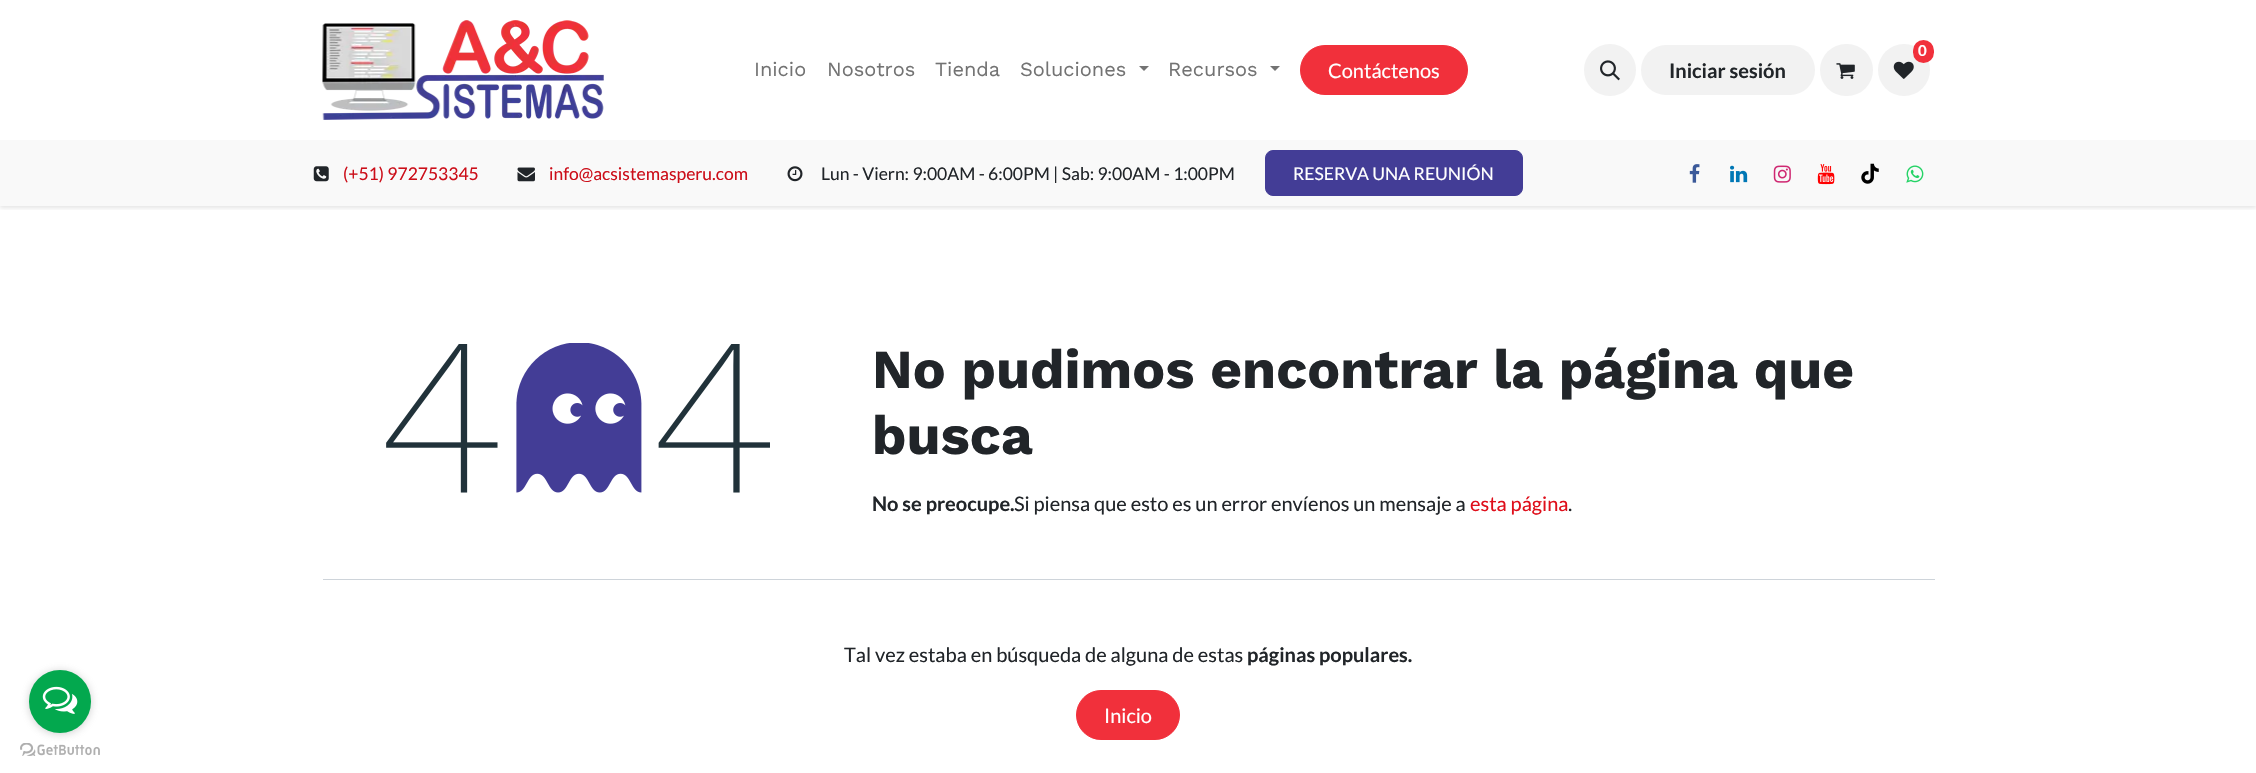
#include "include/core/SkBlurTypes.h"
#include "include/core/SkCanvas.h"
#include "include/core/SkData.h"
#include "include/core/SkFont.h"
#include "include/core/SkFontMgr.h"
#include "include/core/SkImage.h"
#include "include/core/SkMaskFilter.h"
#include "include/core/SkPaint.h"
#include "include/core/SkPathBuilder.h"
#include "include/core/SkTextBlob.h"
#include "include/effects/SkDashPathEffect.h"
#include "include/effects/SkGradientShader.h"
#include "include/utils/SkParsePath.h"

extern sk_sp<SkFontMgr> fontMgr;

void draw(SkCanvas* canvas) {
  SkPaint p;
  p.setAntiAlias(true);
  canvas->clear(SK_ColorWHITE);
  canvas->drawImageRect(SkImages::DeferredFromEncodedData(SkData::MakeFromFileName("images/2.png")), SkRect::MakeLTRB(20, 743, 100, 756), SkSamplingOptions());
  p.setColor(SkColorSetARGB(102, 136, 136, 136));
  p.setMaskFilter(SkMaskFilter::MakeBlur(kNormal_SkBlurStyle, 4.5f));
  canvas->drawRoundRect(SkRect::MakeLTRB(29, 671, 91, 734), 31, 31, p);
  p.setMaskFilter(nullptr);
  p.setColor(SkColorSetRGB(3, 168, 78));
  canvas->drawRoundRect(SkRect::MakeLTRB(29, 670, 91, 733), 31, 31, p);
  canvas->drawImageRect(SkImages::DeferredFromEncodedData(SkData::MakeFromFileName("images/1.png")), SkRect::MakeLTRB(42, 686, 78, 714), SkSamplingOptions());
  canvas->save();
  canvas->clipRect(SkRect::MakeLTRB(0, 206, 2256, 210));
  p.setColor(SkColorSetARGB(26, 0, 0, 0));
  p.setMaskFilter(SkMaskFilter::MakeBlur(kNormal_SkBlurStyle, 2));
  canvas->drawRect(SkRect::MakeLTRB(0, 1, 2256, 208), p);
  p.setMaskFilter(nullptr);
  canvas->restore();
  canvas->drawImageRect(SkImages::DeferredFromEncodedData(SkData::MakeFromFileName("images/3.png")), SkRect::MakeLTRB(322, 20, 604, 120), SkSamplingOptions());
  p.setColor(SkColorSetRGB(115, 115, 115));
  canvas->drawPath(SkPathBuilder().moveTo(1139, 66).lineTo(1149, 66).lineTo(1144, 71).close().detach(), p);
  canvas->drawPath(SkPathBuilder().moveTo(1270, 66).lineTo(1280, 66).lineTo(1275, 71).close().detach(), p);
  p.setColor(SkColorSetRGB(242, 242, 242));
  canvas->drawCircle(1610, 70, 26, p);
  canvas->drawImageRect(SkImages::DeferredFromEncodedData(SkData::MakeFromFileName("images/4.png")), SkRect::MakeLTRB(1600, 60, 1620, 81), SkSamplingOptions());
  canvas->drawRoundRect(SkRect::MakeLTRB(1820, 44, 1873, 96), 26, 26, p);
  canvas->drawImageRect(SkImages::DeferredFromEncodedData(SkData::MakeFromFileName("images/5.png")), SkRect::MakeLTRB(1836, 63, 1855, 79), SkSamplingOptions());
  canvas->drawCircle(1904, 70, 26, p);
  canvas->drawImageRect(SkImages::DeferredFromEncodedData(SkData::MakeFromFileName("images/6.png")), SkRect::MakeLTRB(1893, 61, 1914, 79), SkSamplingOptions());
  p.setColor(SkColorSetRGB(241, 48, 59));
  canvas->drawRoundRect(SkRect::MakeLTRB(1913, 40, 1934, 63), 10.5f, 10.5f, p);
  canvas->drawRoundRect(SkRect::MakeLTRB(1300.5f, 45.5f, 1467.5f, 94.5f), 24.5f, 24.5f, p);
  p.setStyle(SkPaint::kStroke_Style);
  p.setStrokeWidth(1);
  canvas->drawRoundRect(SkRect::MakeLTRB(1300.5f, 45.5f, 1467.5f, 94.5f), 24.5f, 24.5f, p);
  p.setStyle(SkPaint::kFill_Style);
  p.setColor(SkColorSetRGB(242, 242, 242));
  canvas->drawRoundRect(SkRect::MakeLTRB(1641, 45, 1815, 95), 25, 25, p);
  p.setColor(SkColorSetRGB(249, 249, 249));
  canvas->drawRect(SkRect::MakeLTRB(0, 140, 2256, 206), p);
  canvas->drawImageRect(SkImages::DeferredFromEncodedData(SkData::MakeFromFileName("images/7.png")), SkRect::MakeLTRB(313, 166, 329, 182), SkSamplingOptions());
  canvas->drawImageRect(SkImages::DeferredFromEncodedData(SkData::MakeFromFileName("images/8.png")), SkRect::MakeLTRB(517, 167, 535, 182), SkSamplingOptions());
  canvas->drawImageRect(SkImages::DeferredFromEncodedData(SkData::MakeFromFileName("images/9.png")), SkRect::MakeLTRB(787, 166, 803, 182), SkSamplingOptions());
  p.setColor(SkColorSetRGB(67, 61, 150));
  canvas->drawRoundRect(SkRect::MakeLTRB(1265.5f, 150.5f, 1522.5f, 195.5f), 7.5f, 7.5f, p);
  p.setStyle(SkPaint::kStroke_Style);
  canvas->drawRoundRect(SkRect::MakeLTRB(1265.5f, 150.5f, 1522.5f, 195.5f), 7.5f, 7.5f, p);
  canvas->drawImageRect(SkImages::DeferredFromEncodedData(SkData::MakeFromFileName("images/10.png")), SkRect::MakeLTRB(1689, 164, 1700, 183), SkSamplingOptions());
  canvas->drawImageRect(SkImages::DeferredFromEncodedData(SkData::MakeFromFileName("images/11.png")), SkRect::MakeLTRB(1730, 165, 1748, 183), SkSamplingOptions());
  canvas->drawImageRect(SkImages::DeferredFromEncodedData(SkData::MakeFromFileName("images/12.png")), SkRect::MakeLTRB(1773, 165, 1791, 183), SkSamplingOptions());
  canvas->drawImageRect(SkImages::DeferredFromEncodedData(SkData::MakeFromFileName("images/13.png")), SkRect::MakeLTRB(1817, 164, 1835, 185), SkSamplingOptions());
  canvas->drawImageRect(SkImages::DeferredFromEncodedData(SkData::MakeFromFileName("images/14.png")), SkRect::MakeLTRB(1861, 163, 1879, 184), SkSamplingOptions());
  canvas->drawImageRect(SkImages::DeferredFromEncodedData(SkData::MakeFromFileName("images/15.png")), SkRect::MakeLTRB(1906, 165, 1924, 183), SkSamplingOptions());
  canvas->drawImageRect(SkImages::DeferredFromEncodedData(SkData::MakeFromFileName("images/16.png")), SkRect::MakeLTRB(386, 343, 770, 493), SkSamplingOptions());
  p.setStyle(SkPaint::kFill_Style);
  p.setColor(SkColorSetRGB(206, 212, 218));
  canvas->drawRect(SkRect::MakeLTRB(323, 579, 1935, 580), p);
  p.setColor(SkColorSetRGB(241, 48, 59));
  canvas->drawRoundRect(SkRect::MakeLTRB(1076.5f, 690.5f, 1179.5f, 739.5f), 24.5f, 24.5f, p);
  p.setStyle(SkPaint::kStroke_Style);
  canvas->drawRoundRect(SkRect::MakeLTRB(1076.5f, 690.5f, 1179.5f, 739.5f), 24.5f, 24.5f, p);
  SkFont font1(fontMgr->matchFamilyStyle("Work Sans", SkFontStyle::Normal()), 20);
  font1.setSubpixel(true);
  p.setStyle(SkPaint::kFill_Style);
  p.setColor(SkColorSetRGB(115, 115, 115));
  canvas->drawString("Inicio", 754, 76, font1, p);
  canvas->drawString("Nosotros", 827, 76, font1, p);
  canvas->drawString("Tienda", 935, 76, font1, p);
  canvas->drawString("Soluciones", 1020, 76, font1, p);
  canvas->drawString("Recursos", 1168, 76, font1, p);
  SkFont font2(fontMgr->matchFamilyStyle("Lato", SkFontStyle::Bold()), 15);
  font2.setSubpixel(true);
  p.setColor(SK_ColorWHITE);
  canvas->drawString("0", 1918, 56, font2, p);
  SkFont font3(fontMgr->matchFamilyStyle("Lato", SkFontStyle::Normal()), 20);
  font3.setSubpixel(true);
  canvas->drawString("Contáctenos", 1328, 78, font3, p);
  SkFont font4(fontMgr->matchFamilyStyle("Lato", SkFontStyle::Bold()), 20);
  font4.setSubpixel(true);
  p.setColor(SkColorSetRGB(33, 37, 41));
  canvas->drawString("Iniciar sesión", 1669, 78, font4, p);
  SkFont font5(fontMgr->matchFamilyStyle("Lato", SkFontStyle::Normal()), 17.5f);
  font5.setSubpixel(true);
  p.setColor(SkColorSetRGB(204, 14, 25));
  canvas->drawString("(+51) 972753345", 343, 180, font5, p);
  canvas->drawString("info@acsistemasperu.com", 549, 180, font5, p);
  p.setColor(SkColorSetRGB(33, 37, 41));
  canvas->drawString("Lun - Viern: 9:00AM - 6:00PM | Sab: 9:00AM - 1:00PM", 821, 180, font5, p);
  p.setColor(SK_ColorWHITE);
  canvas->drawString("RESERVA UNA REUNIÓN", 1293, 180, font5, p);
  SkFont font6(fontMgr->matchFamilyStyle("Work Sans", SkFontStyle::Bold()), 55);
  font6.setSubpixel(true);
  p.setColor(SkColorSetRGB(33, 37, 41));
  canvas->drawString("No pudimos encontrar la página que", 872, 388, font6, p);
  canvas->drawString("busca", 872, 454, font6, p);
  canvas->drawString("No se preocupe.", 872, 511, font4, p);
  canvas->drawString("Si piensa que esto es un error envíenos un mensaje a", 1014, 511, font3, p);
  p.setColor(SkColorSetRGB(223, 15, 27));
  canvas->drawString("esta página", 1470, 511, font3, p);
  p.setColor(SkColorSetRGB(33, 37, 41));
  canvas->drawString(".", 1568, 511, font3, p);
  canvas->drawString("Tal vez estaba en búsqueda de alguna de estas", 844, 662, font3, p);
  canvas->drawString("páginas populares.", 1247, 662, font4, p);
  p.setColor(SK_ColorWHITE);
  canvas->drawString("Inicio", 1104, 723, font3, p);
}
